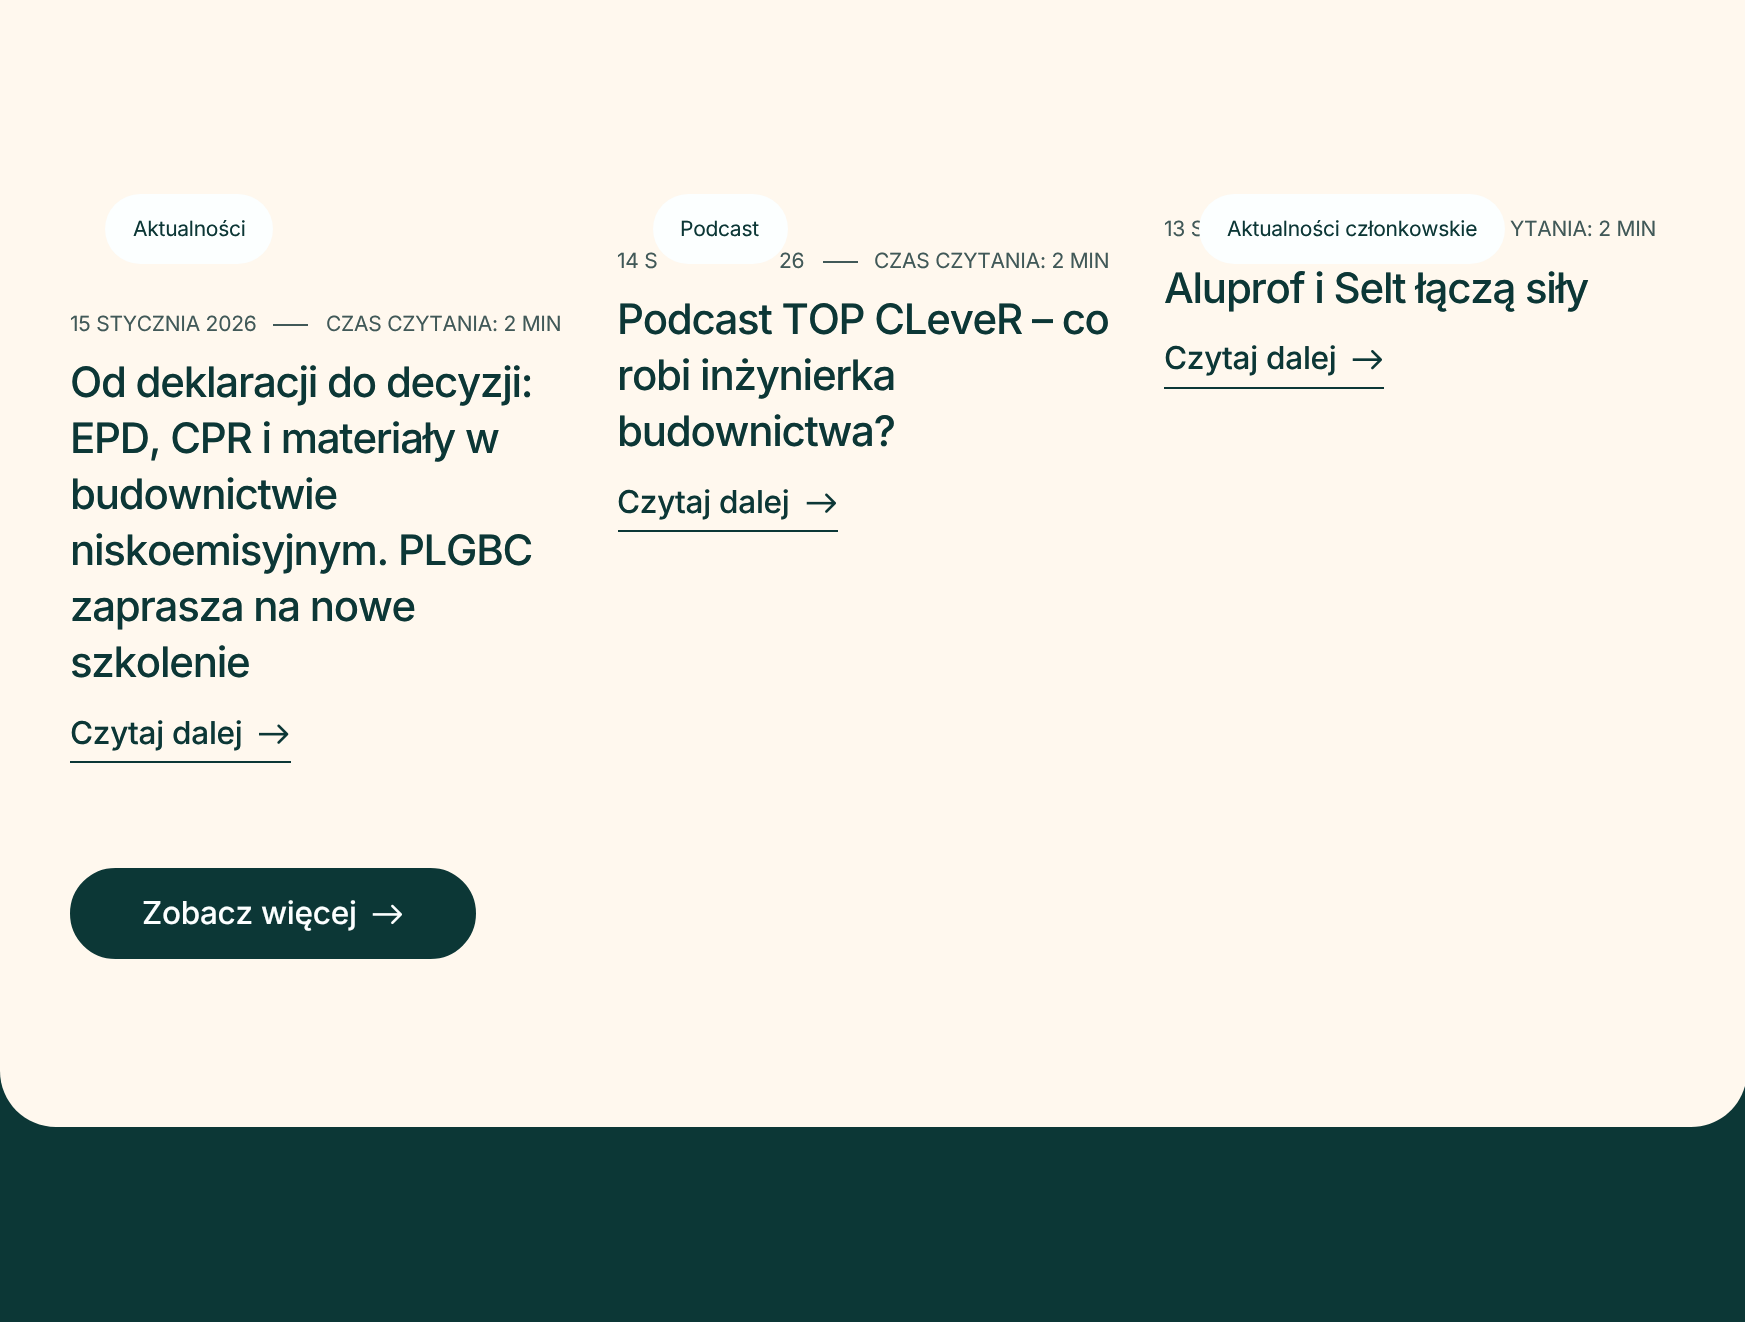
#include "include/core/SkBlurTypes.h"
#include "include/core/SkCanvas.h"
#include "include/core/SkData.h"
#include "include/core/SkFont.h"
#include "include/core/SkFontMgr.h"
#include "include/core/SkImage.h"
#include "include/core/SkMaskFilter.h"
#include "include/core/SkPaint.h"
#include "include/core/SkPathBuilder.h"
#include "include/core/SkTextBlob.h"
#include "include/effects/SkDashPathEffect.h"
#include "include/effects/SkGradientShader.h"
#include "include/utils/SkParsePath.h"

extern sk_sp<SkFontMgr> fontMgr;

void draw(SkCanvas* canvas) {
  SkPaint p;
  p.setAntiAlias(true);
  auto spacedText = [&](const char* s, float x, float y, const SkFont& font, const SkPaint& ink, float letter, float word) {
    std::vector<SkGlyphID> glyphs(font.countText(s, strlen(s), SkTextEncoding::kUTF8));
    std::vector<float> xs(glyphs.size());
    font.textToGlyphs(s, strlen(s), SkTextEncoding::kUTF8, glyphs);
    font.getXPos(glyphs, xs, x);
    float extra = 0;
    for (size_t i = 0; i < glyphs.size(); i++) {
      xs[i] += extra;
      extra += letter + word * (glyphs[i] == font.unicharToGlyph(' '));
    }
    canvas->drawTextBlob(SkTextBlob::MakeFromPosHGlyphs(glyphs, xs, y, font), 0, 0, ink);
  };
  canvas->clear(SkColorSetRGB(12, 55, 54));
  p.setColor(SkColorSetRGB(255, 248, 238));
  canvas->drawPath(SkPathBuilder().moveTo(0, -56).lineTo(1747, -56).lineTo(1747, 1071).cubicTo(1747, 1102, 1722, 1127, 1691, 1127).lineTo(56, 1127).cubicTo(25, 1127, 0, 1102, 0, 1071).close().detach(), p);
  p.setColor(SkColorSetRGB(252, 255, 255));
  canvas->drawRoundRect(SkRect::MakeLTRB(105, 194, 273, 264), 35, 35, p);
  p.setColor(SkColorSetRGB(65, 89, 88));
  canvas->drawRect(SkRect::MakeLTRB(273, 324, 308, 326), p);
  p.setColor(SkColorSetRGB(12, 55, 54));
  canvas->drawRect(SkRect::MakeLTRB(70, 761, 291, 763), p);
  canvas->drawImageRect(SkImages::DeferredFromEncodedData(SkData::MakeFromFileName("images/1.png")), SkRect::MakeLTRB(259, 724, 289, 744), SkSamplingOptions());
  p.setColor(SkColorSetRGB(65, 89, 88));
  canvas->drawRect(SkRect::MakeLTRB(823, 261, 858, 263), p);
  p.setColor(SkColorSetRGB(12, 55, 54));
  canvas->drawRect(SkRect::MakeLTRB(618, 530, 838, 532), p);
  canvas->drawImageRect(SkImages::DeferredFromEncodedData(SkData::MakeFromFileName("images/2.png")), SkRect::MakeLTRB(806, 493, 836, 513), SkSamplingOptions());
  canvas->drawRect(SkRect::MakeLTRB(1164, 387, 1384, 389), p);
  canvas->drawImageRect(SkImages::DeferredFromEncodedData(SkData::MakeFromFileName("images/3.png")), SkRect::MakeLTRB(1352, 350, 1382, 370), SkSamplingOptions());
  canvas->drawRoundRect(SkRect::MakeLTRB(71, 869, 475, 958), 44.5f, 44.5f, p);
  p.setStyle(SkPaint::kStroke_Style);
  p.setStrokeWidth(2);
  canvas->drawRoundRect(SkRect::MakeLTRB(71, 869, 475, 958), 44.5f, 44.5f, p);
  canvas->drawImageRect(SkImages::DeferredFromEncodedData(SkData::MakeFromFileName("images/4.png")), SkRect::MakeLTRB(372, 904, 402, 925), SkSamplingOptions());
  SkFont font1(fontMgr->matchFamilyStyle("Inter", SkFontStyle::Normal()), 21);
  font1.setSubpixel(true);
  p.setStyle(SkPaint::kFill_Style);
  spacedText("Aktualności", 133, 236, font1, p, -0.25f, 0);
  p.setColor(SkColorSetRGB(65, 89, 88));
  spacedText("15 STYCZNIA 2026", 70, 331, font1, p, -0.25f, 0);
  spacedText("CZAS CZYTANIA: 2 MIN", 326, 331, font1, p, -0.25f, 0);
  SkFont font2(fontMgr->matchFamilyStyle("Inter", SkFontStyle(500, SkFontStyle::kNormal_Width, SkFontStyle::kUpright_Slant)), 42);
  font2.setSubpixel(true);
  p.setColor(SkColorSetRGB(12, 55, 54));
  spacedText("Od deklaracji do decyzji:", 70, 397, font2, p, -1.25f, 0);
  spacedText("EPD, CPR i materiały w", 70, 453, font2, p, -1.25f, 0);
  spacedText("budownictwie", 70, 509, font2, p, -1.25f, 0);
  spacedText("niskoemisyjnym. PLGBC", 70, 565, font2, p, -1.25f, 0);
  spacedText("zaprasza na nowe", 70, 621, font2, p, -1.25f, 0);
  spacedText("szkolenie", 70, 677, font2, p, -1.25f, 0);
  SkFont font3(fontMgr->matchFamilyStyle("Inter", SkFontStyle(500, SkFontStyle::kNormal_Width, SkFontStyle::kUpright_Slant)), 31.5f);
  font3.setSubpixel(true);
  spacedText("Czytaj dalej", 70, 744, font3, p, -0.25f, 0);
  p.setColor(SkColorSetRGB(65, 89, 88));
  spacedText("14 S", 617, 268, font1, p, -0.25f, 0);
  spacedText("26", 779, 268, font1, p, -0.25f, 0);
  p.setColor(SkColorSetRGB(252, 255, 255));
  canvas->drawRoundRect(SkRect::MakeLTRB(653, 194, 788, 264), 35, 35, p);
  p.setColor(SkColorSetRGB(12, 55, 54));
  spacedText("Podcast", 680, 236, font1, p, -0.25f, 0);
  p.setColor(SkColorSetRGB(65, 89, 88));
  spacedText("CZAS CZYTANIA: 2 MIN", 874, 268, font1, p, -0.25f, 0);
  p.setColor(SkColorSetRGB(12, 55, 54));
  spacedText("Podcast TOP CLeveR – co", 617, 334, font2, p, -1.25f, 0);
  spacedText("robi inżynierka", 617, 390, font2, p, -1.25f, 0);
  spacedText("budownictwa?", 617, 446, font2, p, -1.25f, 0);
  spacedText("Czytaj dalej", 617, 513, font3, p, -0.25f, 0);
  p.setColor(SkColorSetRGB(65, 89, 88));
  spacedText("13 S", 1164, 236, font1, p, -0.25f, 0);
  spacedText("YTANIA: 2 MIN", 1510, 236, font1, p, -0.25f, 0);
  p.setColor(SkColorSetRGB(252, 255, 255));
  canvas->drawRoundRect(SkRect::MakeLTRB(1199, 194, 1505, 264), 35, 35, p);
  p.setColor(SkColorSetRGB(12, 55, 54));
  spacedText("Aktualności członkowskie", 1227, 236, font1, p, -0.25f, 0);
  spacedText("Aluprof i Selt łączą siły", 1164, 303, font2, p, -1.25f, 0);
  spacedText("Czytaj dalej", 1164, 369, font3, p, -0.25f, 0);
  p.setColor(SkColorSetRGB(252, 255, 255));
  spacedText("Zobacz więcej", 142, 924, font3, p, -0.25f, 0);
}
